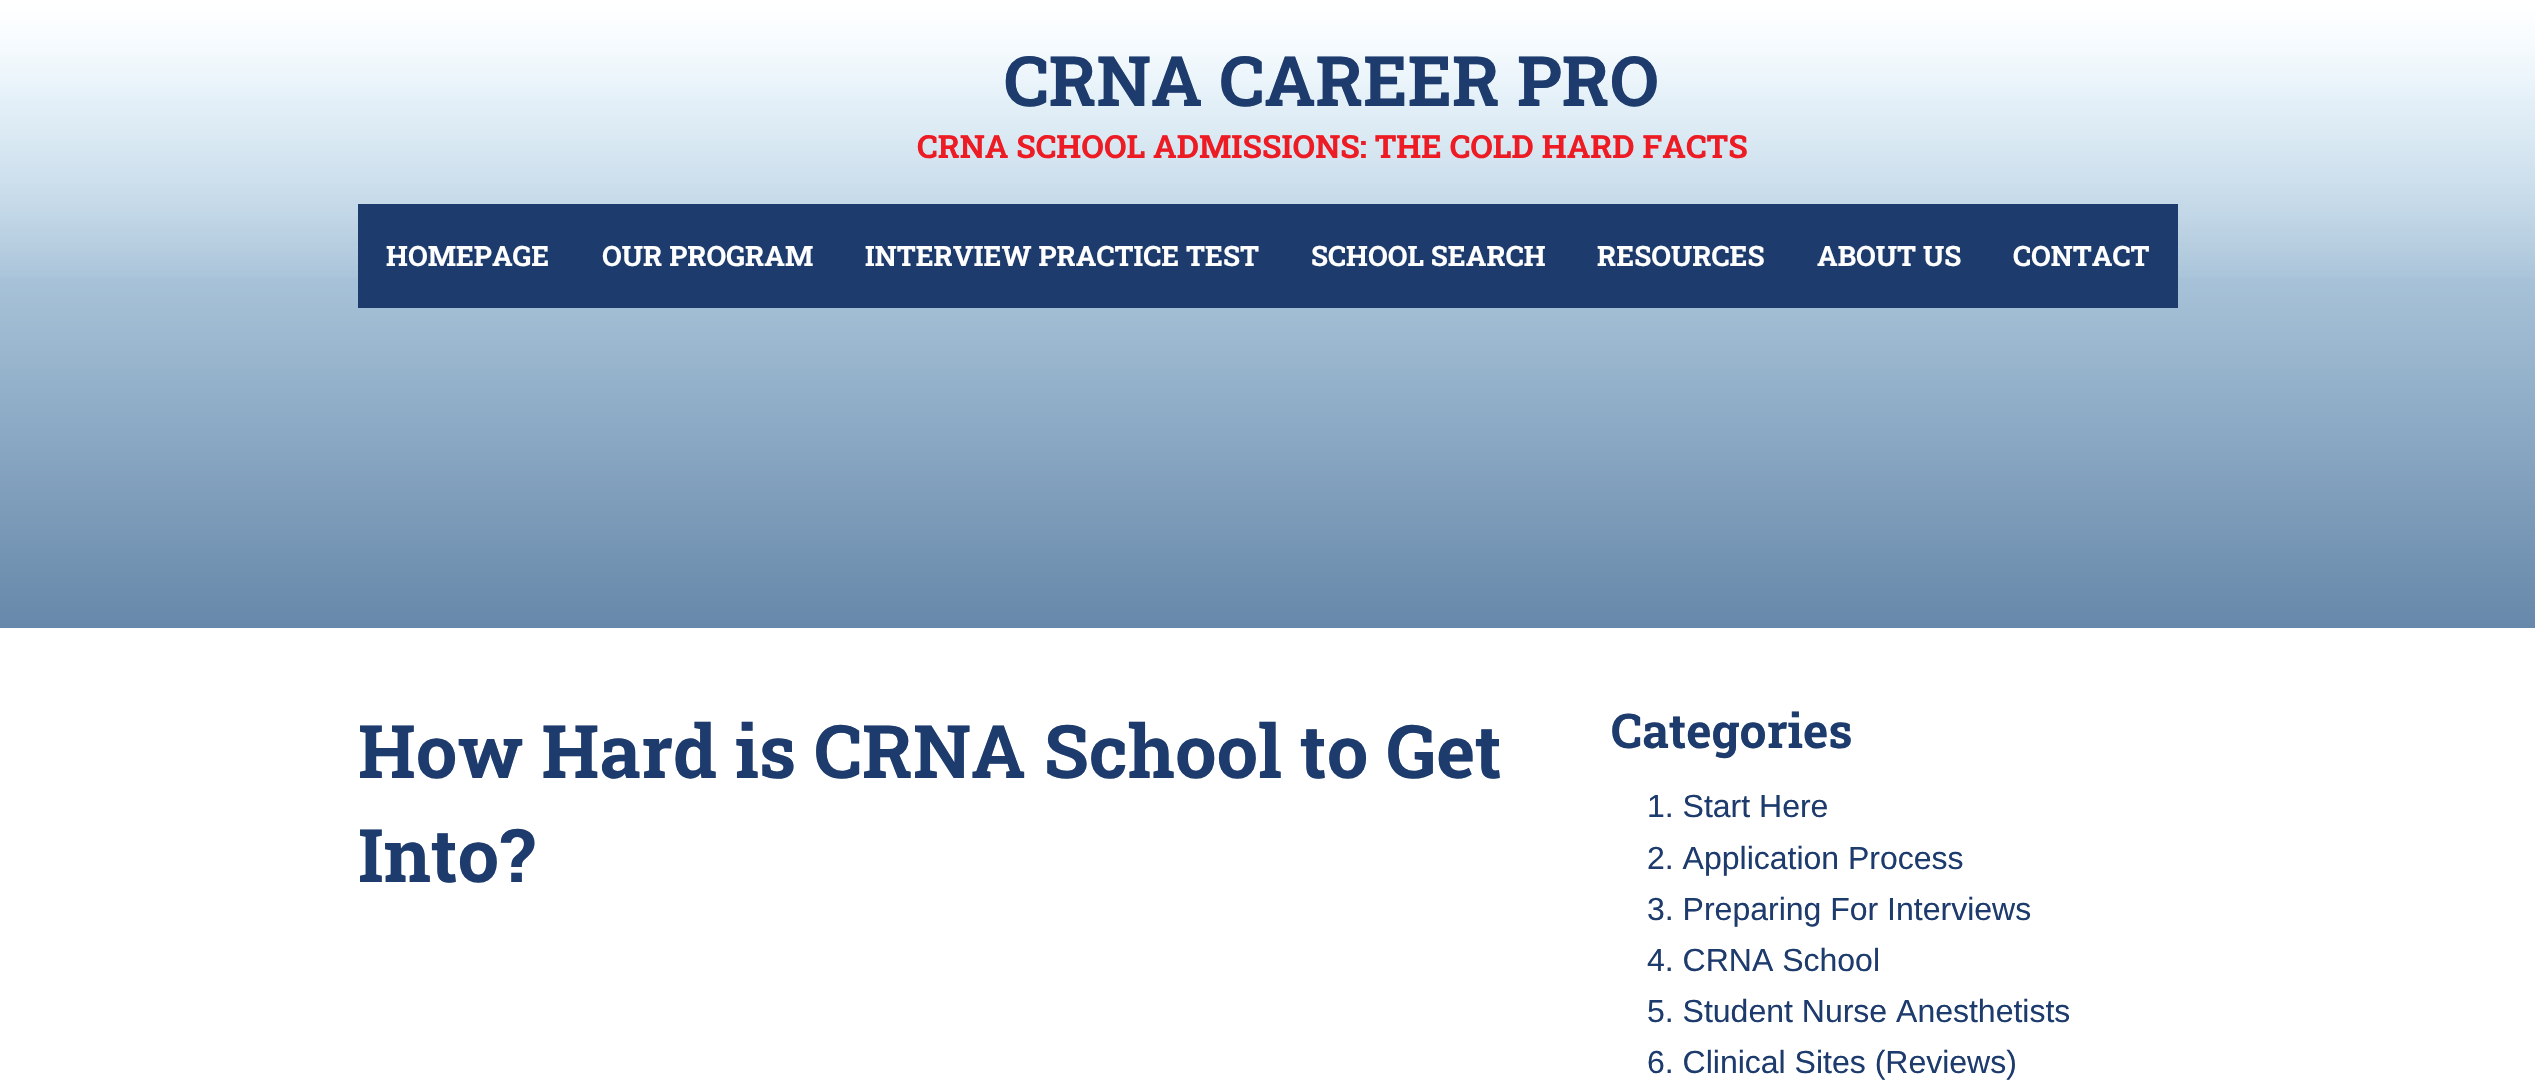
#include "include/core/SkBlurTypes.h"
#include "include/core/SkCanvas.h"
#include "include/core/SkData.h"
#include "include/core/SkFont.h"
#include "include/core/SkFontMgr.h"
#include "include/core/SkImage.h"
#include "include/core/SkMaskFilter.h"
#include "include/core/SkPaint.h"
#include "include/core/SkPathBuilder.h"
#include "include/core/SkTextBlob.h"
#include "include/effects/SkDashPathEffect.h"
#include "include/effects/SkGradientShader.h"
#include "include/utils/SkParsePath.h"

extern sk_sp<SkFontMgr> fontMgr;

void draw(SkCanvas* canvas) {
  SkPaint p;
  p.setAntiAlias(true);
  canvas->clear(SK_ColorWHITE);
  {
    const SkColor colors[] = {SkColorSetRGB(218, 241, 253), SkColorSetRGB(103, 136, 170)};
    const float stops[] = {0, 1};
    const SkPoint ends[] = {{1268, 0}, {1268, 628}};
    p.setShader(SkGradientShader::MakeLinear(ends, colors, stops, 2, SkTileMode::kClamp));
    p.setAlpha(255);
  }
  canvas->drawRect(SkRect::MakeLTRB(0, 1, 2535, 628), p);
  {
    const SkColor colors[] = {SK_ColorWHITE, SkColorSetARGB(128, 255, 255, 255), SkColorSetARGB(0, 255, 255, 255)};
    const float stops[] = {0, 0.16f, 0.46f};
    const SkPoint ends[] = {{1268, 0}, {1268, 628}};
    p.setShader(SkGradientShader::MakeLinear(ends, colors, stops, 3, SkTileMode::kClamp));
    p.setAlpha(255);
  }
  canvas->drawRect(SkRect::MakeLTRB(0, 1, 2535, 278), p);
  p.setShader(nullptr);
  p.setColor(SkColorSetRGB(29, 59, 108));
  canvas->drawRect(SkRect::MakeLTRB(358, 204, 2178, 308), p);
  SkFont font1(fontMgr->matchFamilyStyle("Roboto Slab", SkFontStyle::Bold()), 69.5f);
  font1.setSubpixel(true);
  canvas->drawString("CRNA CAREER PRO", 1004, 106, font1, p);
  SkFont font2(fontMgr->matchFamilyStyle("Roboto Slab", SkFontStyle::Bold()), 32);
  font2.setSubpixel(true);
  p.setColor(SkColorSetRGB(237, 28, 36));
  canvas->drawString("CRNA SCHOOL ADMISSIONS: THE COLD HARD FACTS", 917, 158, font2, p);
  SkFont font3(fontMgr->matchFamilyStyle("Roboto Slab", SkFontStyle::Bold()), 28);
  font3.setSubpixel(true);
  p.setColor(SK_ColorWHITE);
  canvas->drawString("HOMEPAGE", 386, 266, font3, p);
  canvas->drawString("OUR PROGRAM", 602, 266, font3, p);
  canvas->drawString("INTERVIEW PRACTICE TEST", 865, 266, font3, p);
  canvas->drawString("SCHOOL SEARCH", 1311, 266, font3, p);
  canvas->drawString("RESOURCES", 1597, 266, font3, p);
  canvas->drawString("ABOUT US", 1817, 266, font3, p);
  canvas->drawString("CONTACT", 2013, 266, font3, p);
  SkFont font4(fontMgr->matchFamilyStyle("Roboto Slab", SkFontStyle::Bold()), 74);
  font4.setSubpixel(true);
  p.setColor(SkColorSetRGB(29, 59, 108));
  canvas->drawString("How Hard is CRNA School to Get", 358, 778, font4, p);
  canvas->drawString("Into?", 358, 882, font4, p);
  SkFont font5(fontMgr->matchFamilyStyle("Roboto Slab", SkFontStyle::Bold()), 48);
  font5.setSubpixel(true);
  canvas->drawString("Categories", 1611, 748, font5, p);
  SkFont font6(fontMgr->matchFamilyStyle("Liberation Sans", SkFontStyle::Normal()), 32);
  font6.setSubpixel(true);
  canvas->drawString("1. Start Here", 1647, 817, font6, p);
  canvas->drawString("2. Application Process", 1647, 869, font6, p);
  canvas->drawString("3. Preparing For Interviews", 1647, 920, font6, p);
  canvas->drawString("4. CRNA School", 1647, 971, font6, p);
  canvas->drawString("5. Student Nurse Anesthetists", 1647, 1022, font6, p);
  canvas->drawString("6. Clinical Sites (Reviews)", 1647, 1073, font6, p);
}
